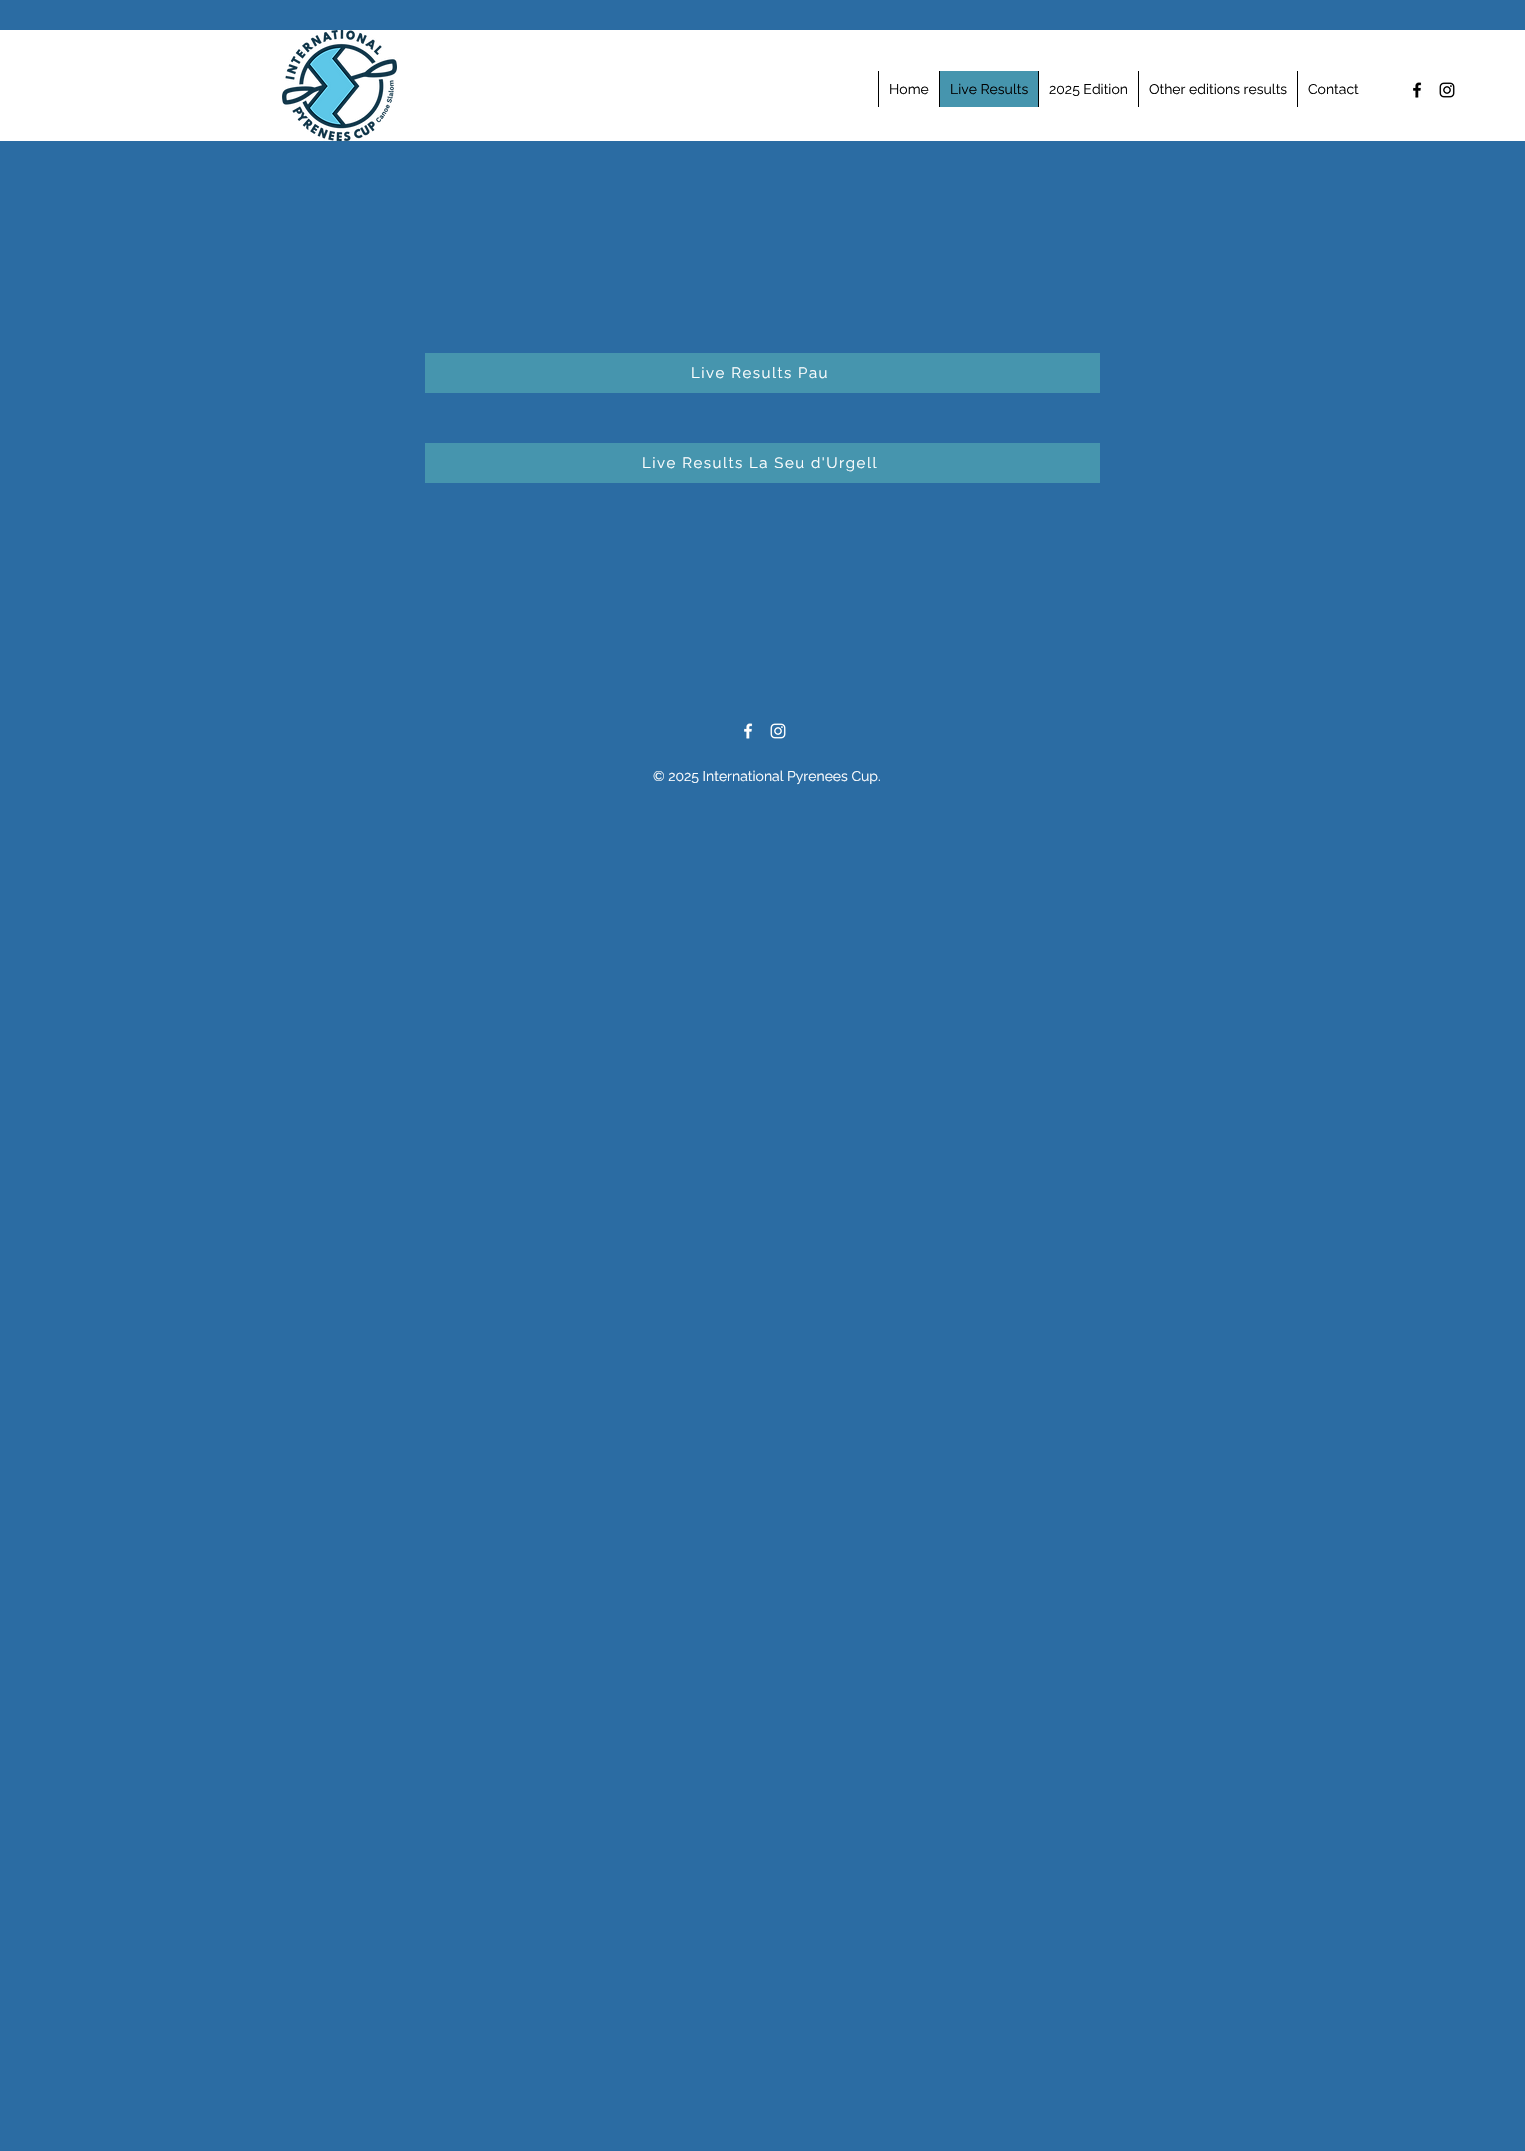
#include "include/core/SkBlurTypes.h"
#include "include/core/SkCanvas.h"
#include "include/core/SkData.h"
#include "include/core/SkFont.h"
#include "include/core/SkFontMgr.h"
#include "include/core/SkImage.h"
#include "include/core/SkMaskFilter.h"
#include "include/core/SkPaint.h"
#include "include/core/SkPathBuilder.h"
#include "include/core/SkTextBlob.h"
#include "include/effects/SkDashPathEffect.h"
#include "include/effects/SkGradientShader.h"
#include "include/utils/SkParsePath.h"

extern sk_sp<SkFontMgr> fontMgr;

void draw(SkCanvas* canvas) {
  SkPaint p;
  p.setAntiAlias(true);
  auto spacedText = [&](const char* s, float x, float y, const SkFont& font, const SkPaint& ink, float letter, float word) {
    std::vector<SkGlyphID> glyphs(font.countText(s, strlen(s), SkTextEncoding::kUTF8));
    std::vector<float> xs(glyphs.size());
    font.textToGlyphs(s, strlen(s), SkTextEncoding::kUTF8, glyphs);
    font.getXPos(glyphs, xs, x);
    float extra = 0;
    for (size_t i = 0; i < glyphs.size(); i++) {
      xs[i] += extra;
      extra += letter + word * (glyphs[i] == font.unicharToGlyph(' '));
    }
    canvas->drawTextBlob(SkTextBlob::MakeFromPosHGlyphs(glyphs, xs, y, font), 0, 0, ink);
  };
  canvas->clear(SkColorSetRGB(43, 108, 163));
  p.setColor(SK_ColorWHITE);
  canvas->drawRect(SkRect::MakeLTRB(0, 30, 1525, 141), p);
  canvas->drawImageRect(SkImages::DeferredFromEncodedData(SkData::MakeFromFileName("images/1.png")), SkRect::MakeLTRB(282, 30, 397, 141), SkSamplingOptions());
  p.setColor(SK_ColorBLACK);
  canvas->drawRect(SkRect::MakeLTRB(878, 71, 879, 107), p);
  p.setColor(SkColorSetRGB(70, 149, 174));
  canvas->drawRect(SkRect::MakeLTRB(940, 71, 1038, 107), p);
  p.setColor(SK_ColorBLACK);
  canvas->drawRect(SkRect::MakeLTRB(939, 71, 940, 107), p);
  canvas->drawRect(SkRect::MakeLTRB(1038, 71, 1039, 107), p);
  canvas->drawRect(SkRect::MakeLTRB(1138, 71, 1139, 107), p);
  canvas->drawRect(SkRect::MakeLTRB(1297, 71, 1298, 107), p);
  canvas->drawImageRect(SkImages::DeferredFromEncodedData(SkData::MakeFromFileName("images/2.png")), SkRect::MakeLTRB(1413, 82, 1422, 98), SkSamplingOptions());
  canvas->drawImageRect(SkImages::DeferredFromEncodedData(SkData::MakeFromFileName("images/3.png")), SkRect::MakeLTRB(1439, 82, 1455, 98), SkSamplingOptions());
  p.setColor(SkColorSetRGB(70, 149, 174));
  canvas->drawRect(SkRect::MakeLTRB(425, 353, 1100, 393), p);
  canvas->drawRect(SkRect::MakeLTRB(425, 443, 1100, 483), p);
  canvas->drawImageRect(SkImages::DeferredFromEncodedData(SkData::MakeFromFileName("images/4.png")), SkRect::MakeLTRB(744, 723, 753, 739), SkSamplingOptions());
  canvas->drawImageRect(SkImages::DeferredFromEncodedData(SkData::MakeFromFileName("images/5.png")), SkRect::MakeLTRB(770, 723, 786, 739), SkSamplingOptions());
  SkFont font1(fontMgr->matchFamilyStyle("Raleway", SkFontStyle::Normal()), 14);
  font1.setSubpixel(true);
  p.setColor(SK_ColorBLACK);
  canvas->drawString("Home", 889, 94, font1, p);
  canvas->drawString("Live Results", 950, 94, font1, p);
  canvas->drawString("2025 Edition", 1049, 94, font1, p);
  canvas->drawString("Other editions results", 1149, 94, font1, p);
  canvas->drawString("Contact", 1308, 94, font1, p);
  SkFont font2(fontMgr->matchFamilyStyle("Raleway", SkFontStyle::Normal()), 15);
  font2.setSubpixel(true);
  p.setColor(SK_ColorWHITE);
  spacedText("Live Results Pau", 691, 378, font2, p, 1.5f, 0);
  spacedText("Live Results La Seu d'Urgell", 642, 468, font2, p, 1.5f, 0);
  canvas->drawString("© 2025 International Pyrenees Cup.", 653, 781, font1, p);
}
